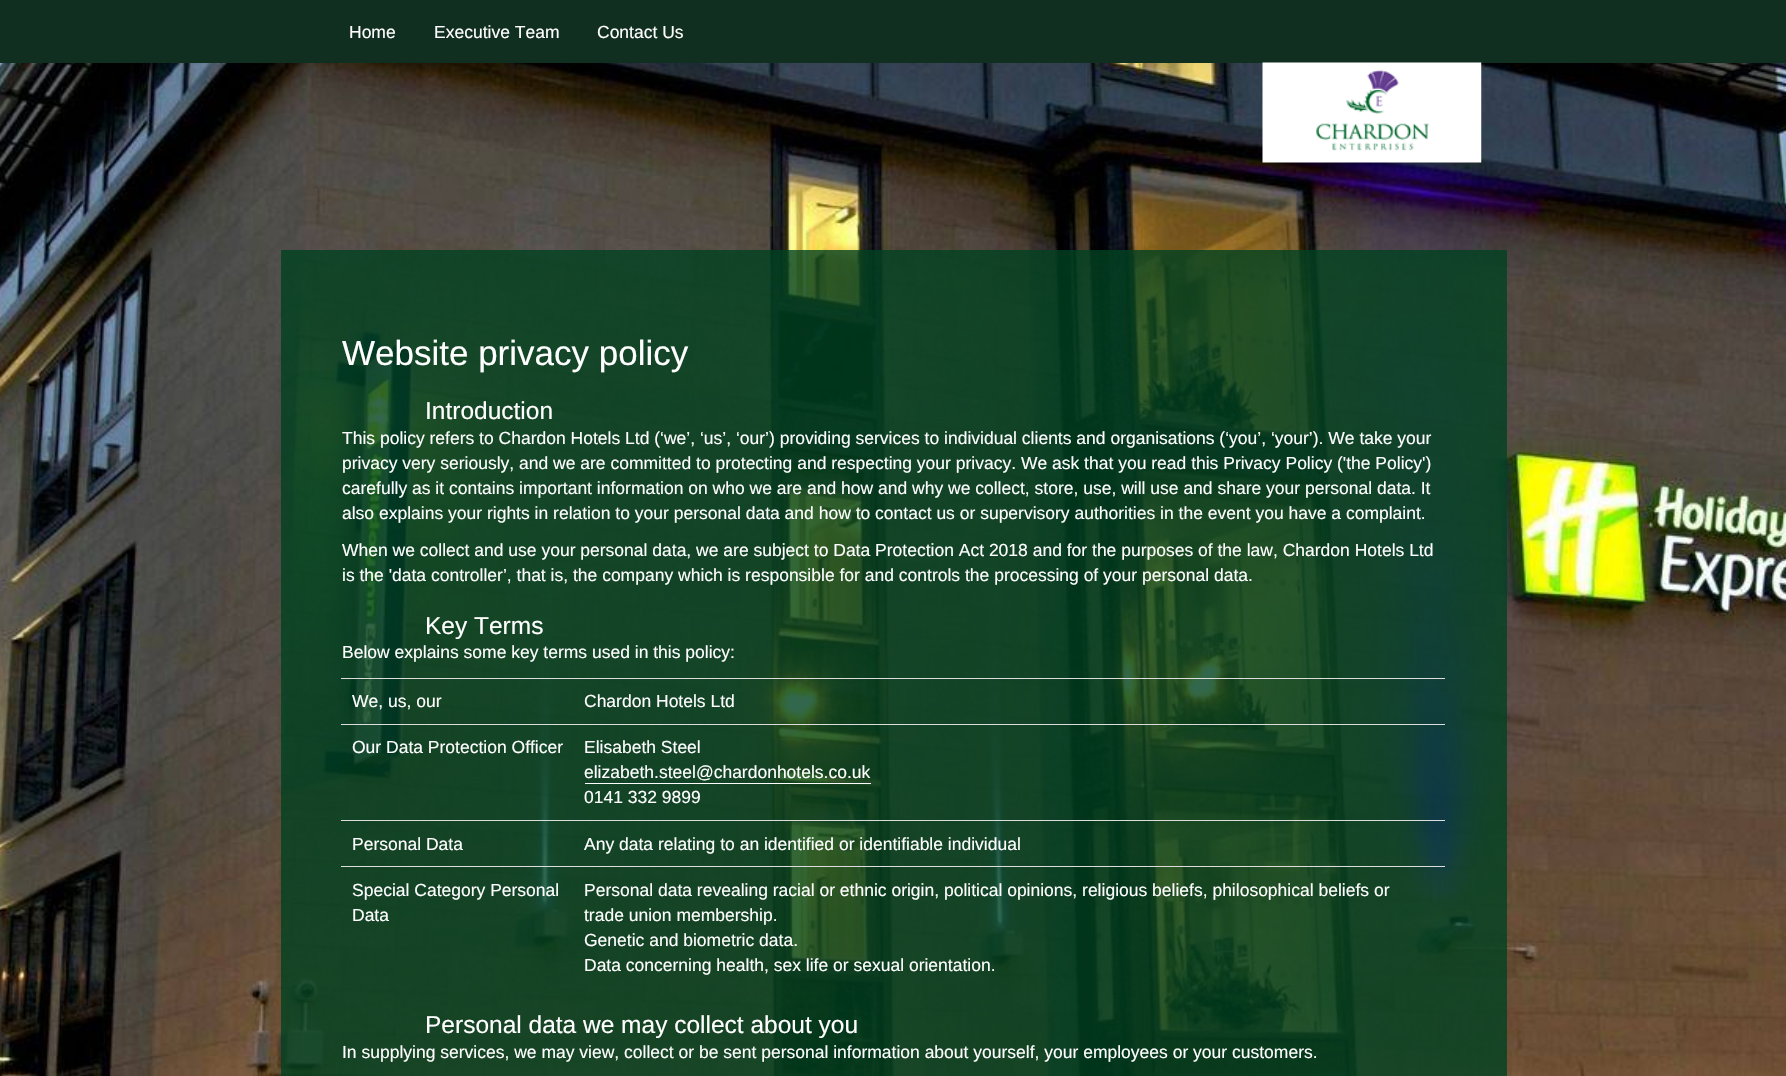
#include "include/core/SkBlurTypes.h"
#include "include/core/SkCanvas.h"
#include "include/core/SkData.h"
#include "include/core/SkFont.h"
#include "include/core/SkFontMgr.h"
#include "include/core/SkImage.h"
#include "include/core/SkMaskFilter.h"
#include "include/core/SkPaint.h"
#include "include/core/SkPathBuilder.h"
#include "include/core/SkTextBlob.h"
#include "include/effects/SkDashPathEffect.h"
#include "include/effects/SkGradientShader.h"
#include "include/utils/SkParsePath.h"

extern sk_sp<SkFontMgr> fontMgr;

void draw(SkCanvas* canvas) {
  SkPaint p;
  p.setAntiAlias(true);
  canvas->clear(SK_ColorWHITE);
  p.setColor(SkColorSetRGB(17, 47, 32));
  canvas->drawRect(SkRect::MakeLTRB(0, 0, 1786, 63), p);
  canvas->drawImageRect(SkImages::DeferredFromEncodedData(SkData::MakeFromFileName("images/2.png")), SkRect::MakeLTRB(0, 63, 1786, 1076), SkSamplingOptions());
  canvas->drawImageRect(SkImages::DeferredFromEncodedData(SkData::MakeFromFileName("images/1.png")), SkRect::MakeLTRB(1262, 62, 1482, 163), SkSamplingOptions());
  p.setColor(SkColorSetARGB(204, 0, 65, 32));
  canvas->drawRect(SkRect::MakeLTRB(281, 250, 1507, 1076), p);
  p.setColor(SkColorSetRGB(221, 221, 221));
  canvas->drawRect(SkRect::MakeLTRB(341, 678, 1445, 679), p);
  canvas->drawRect(SkRect::MakeLTRB(341, 724, 1445, 725), p);
  p.setColor(SK_ColorWHITE);
  canvas->drawRect(SkRect::MakeLTRB(585, 783, 871, 784), p);
  p.setColor(SkColorSetRGB(221, 221, 221));
  canvas->drawRect(SkRect::MakeLTRB(341, 820, 1445, 821), p);
  canvas->drawRect(SkRect::MakeLTRB(341, 866, 1445, 867), p);
  SkFont font1(fontMgr->matchFamilyStyle("Liberation Sans", SkFontStyle::Normal()), 17.5f);
  font1.setSubpixel(true);
  p.setColor(SK_ColorWHITE);
  canvas->drawString("Home", 349, 38, font1, p);
  canvas->drawString("Executive Team", 434, 38, font1, p);
  canvas->drawString("Contact Us", 597, 38, font1, p);
  SkFont font2(fontMgr->matchFamilyStyle("Liberation Sans", SkFontStyle::Normal()), 35);
  font2.setSubpixel(true);
  canvas->drawString("Website privacy policy", 342, 365, font2, p);
  SkFont font3(fontMgr->matchFamilyStyle("Liberation Sans", SkFontStyle::Normal()), 24.5f);
  font3.setSubpixel(true);
  canvas->drawString("Introduction", 425, 419, font3, p);
  canvas->drawString("This policy refers to Chardon Hotels Ltd (‘we’, ‘us’, ‘our’) providing services to individual clients and organisations (‘you’, ‘your’). We take your", 342, 444, font1, p);
  canvas->drawString("privacy very seriously, and we are committed to protecting and respecting your privacy. We ask that you read this Privacy Policy ('the Policy')", 342, 469, font1, p);
  canvas->drawString("carefully as it contains important information on who we are and how and why we collect, store, use, will use and share your personal data. It", 342, 494, font1, p);
  canvas->drawString("also explains your rights in relation to your personal data and how to contact us or supervisory authorities in the event you have a complaint.", 342, 519, font1, p);
  canvas->drawString("When we collect and use your personal data, we are subject to Data Protection Act 2018 and for the purposes of the law, Chardon Hotels Ltd", 342, 556, font1, p);
  canvas->drawString("is the 'data controller’, that is, the company which is responsible for and controls the processing of your personal data.", 342, 581, font1, p);
  canvas->drawString("Key Terms", 425, 634, font3, p);
  canvas->drawString("Below explains some key terms used in this policy:", 342, 658, font1, p);
  canvas->drawString("We, us, our", 352, 707, font1, p);
  canvas->drawString("Chardon Hotels Ltd", 584, 707, font1, p);
  canvas->drawString("Our Data Protection Officer", 352, 753, font1, p);
  canvas->drawString("Elisabeth Steel", 584, 753, font1, p);
  canvas->drawString("elizabeth.steel@chardonhotels.co.uk", 584, 778, font1, p);
  canvas->drawString("0141 332 9899", 584, 803, font1, p);
  canvas->drawString("Personal Data", 352, 850, font1, p);
  canvas->drawString("Any data relating to an identified or identifiable individual", 584, 850, font1, p);
  canvas->drawString("Special Category Personal", 352, 896, font1, p);
  canvas->drawString("Data", 352, 921, font1, p);
  canvas->drawString("Personal data revealing racial or ethnic origin, political opinions, religious beliefs, philosophical beliefs or", 584, 896, font1, p);
  canvas->drawString("trade union membership.", 584, 921, font1, p);
  canvas->drawString("Genetic and biometric data.", 584, 946, font1, p);
  canvas->drawString("Data concerning health, sex life or sexual orientation.", 584, 971, font1, p);
  canvas->drawString("Personal data we may collect about you", 425, 1033, font3, p);
  canvas->drawString("In supplying services, we may view, collect or be sent personal information about yourself, your employees or your customers.", 342, 1058, font1, p);
}
